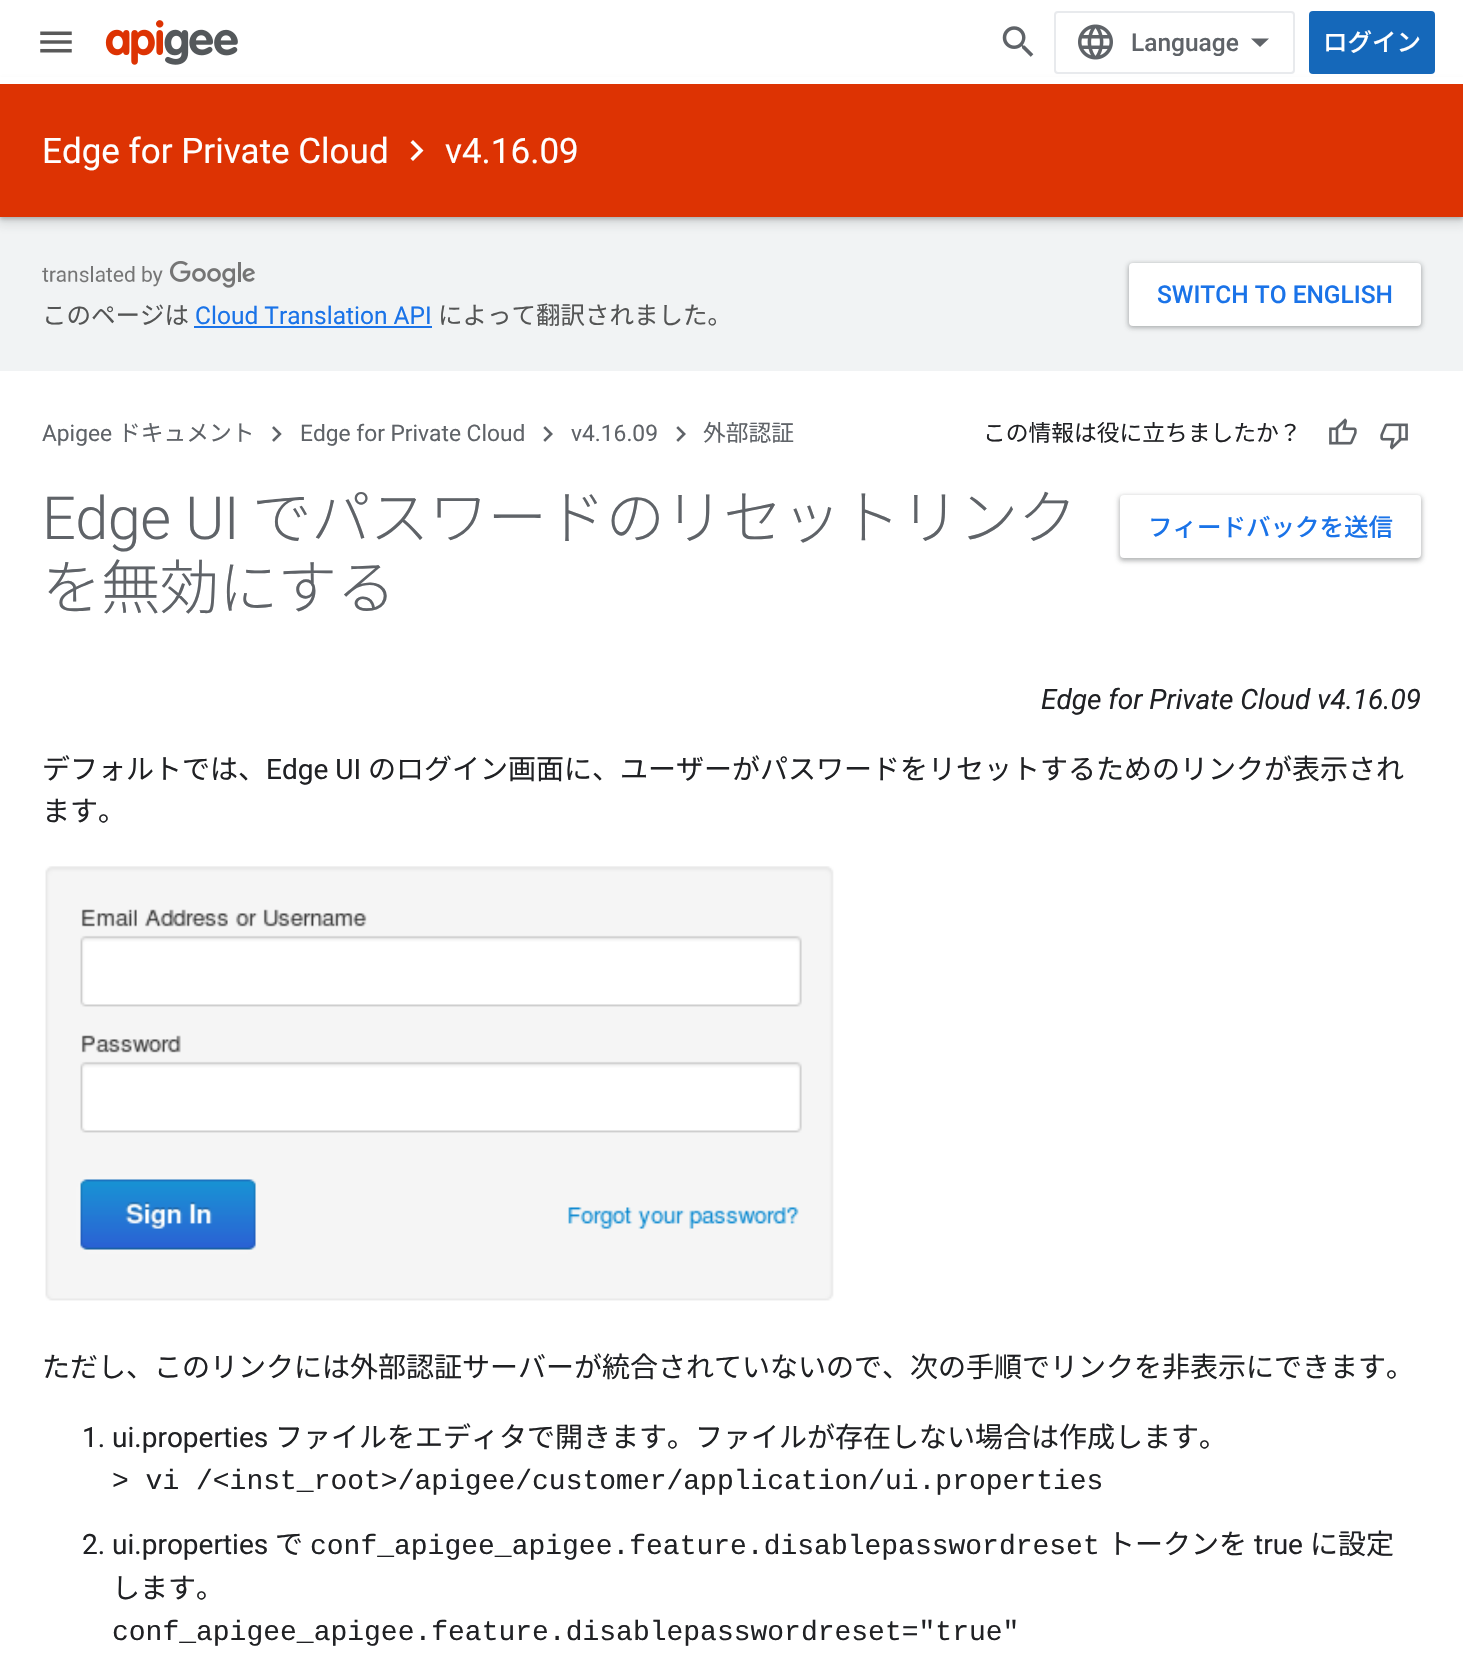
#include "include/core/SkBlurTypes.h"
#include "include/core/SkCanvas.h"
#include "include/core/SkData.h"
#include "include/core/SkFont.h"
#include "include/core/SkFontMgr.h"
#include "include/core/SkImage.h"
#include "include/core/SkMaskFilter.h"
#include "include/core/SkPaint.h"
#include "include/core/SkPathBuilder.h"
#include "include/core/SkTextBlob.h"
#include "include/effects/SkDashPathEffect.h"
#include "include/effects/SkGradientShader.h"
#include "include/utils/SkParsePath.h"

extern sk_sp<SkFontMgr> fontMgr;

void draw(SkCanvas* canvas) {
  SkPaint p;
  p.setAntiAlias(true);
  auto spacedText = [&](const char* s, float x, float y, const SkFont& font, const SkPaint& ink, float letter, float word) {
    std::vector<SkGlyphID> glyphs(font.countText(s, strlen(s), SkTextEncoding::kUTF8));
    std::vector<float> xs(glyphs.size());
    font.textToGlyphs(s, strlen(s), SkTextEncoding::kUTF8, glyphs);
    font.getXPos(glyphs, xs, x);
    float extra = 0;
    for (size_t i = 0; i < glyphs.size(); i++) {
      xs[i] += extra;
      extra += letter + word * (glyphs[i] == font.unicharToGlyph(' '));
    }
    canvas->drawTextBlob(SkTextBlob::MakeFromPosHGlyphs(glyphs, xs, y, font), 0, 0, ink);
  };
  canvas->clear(SK_ColorWHITE);
  p.setColor(SkColorSetRGB(241, 243, 244));
  canvas->drawRect(SkRect::MakeLTRB(0, 217, 1463, 371), p);
  p.setColor(SkColorSetARGB(38, 60, 64, 67));
  p.setMaskFilter(SkMaskFilter::MakeBlur(kNormal_SkBlurStyle, 5));
  canvas->drawRect(SkRect::MakeLTRB(-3, 84, 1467, 224), p);
  p.setMaskFilter(nullptr);
  p.setColor(SkColorSetARGB(77, 60, 64, 67));
  p.setMaskFilter(SkMaskFilter::MakeBlur(kNormal_SkBlurStyle, 2));
  canvas->drawRect(SkRect::MakeLTRB(0, 86, 1463, 219), p);
  p.setMaskFilter(nullptr);
  p.setColor(SK_ColorWHITE);
  canvas->drawRect(SkRect::MakeLTRB(0, 77, 1463, 84), p);
  canvas->drawImageRect(SkImages::DeferredFromEncodedData(SkData::MakeFromFileName("images/1.png")), SkRect::MakeLTRB(40, 31, 72, 53), SkSamplingOptions());
  canvas->drawImageRect(SkImages::DeferredFromEncodedData(SkData::MakeFromFileName("images/2.png")), SkRect::MakeLTRB(105, 20, 238, 65), SkSamplingOptions());
  canvas->drawImageRect(SkImages::DeferredFromEncodedData(SkData::MakeFromFileName("images/3.png")), SkRect::MakeLTRB(1002, 26, 1034, 57), SkSamplingOptions());
  p.setStyle(SkPaint::kStroke_Style);
  p.setStrokeWidth(2);
  p.setColor(SkColorSetRGB(232, 234, 237));
  canvas->drawRoundRect(SkRect::MakeLTRB(1055, 12, 1294, 73), 3, 3, p);
  canvas->drawImageRect(SkImages::DeferredFromEncodedData(SkData::MakeFromFileName("images/4.png")), SkRect::MakeLTRB(1078, 24, 1113, 60), SkSamplingOptions());
  p.setStyle(SkPaint::kFill_Style);
  p.setColor(SkColorSetRGB(95, 99, 104));
  canvas->drawPath(SkPathBuilder().moveTo(1260, 47).lineTo(1251, 38.5f).lineTo(1269, 38.5f).close().detach(), p);
  p.setColor(SkColorSetRGB(21, 104, 186));
  canvas->drawRoundRect(SkRect::MakeLTRB(1309, 11, 1435, 74), 4, 4, p);
  p.setColor(SkColorSetRGB(221, 51, 3));
  canvas->drawRect(SkRect::MakeLTRB(0, 84, 1463, 217), p);
  p.setColor(SK_ColorWHITE);
  canvas->drawPath(SkPathBuilder().moveTo(413, 140).lineTo(423.5f, 150.5f).lineTo(413, 161).lineTo(410.5f, 158.5f).lineTo(418.5f, 150.5f).lineTo(410.5f, 142.5f).close().detach(), p);
  p.setColor(SkColorSetARGB(38, 60, 64, 67));
  p.setMaskFilter(SkMaskFilter::MakeBlur(kNormal_SkBlurStyle, 2.5f));
  canvas->drawRoundRect(SkRect::MakeLTRB(1127, 263, 1423, 329), 5, 5, p);
  p.setMaskFilter(nullptr);
  p.setColor(SkColorSetARGB(77, 60, 64, 67));
  p.setMaskFilter(SkMaskFilter::MakeBlur(kNormal_SkBlurStyle, 2));
  canvas->drawRoundRect(SkRect::MakeLTRB(1129, 264, 1421, 327), 4, 4, p);
  p.setMaskFilter(nullptr);
  p.setColor(SK_ColorWHITE);
  canvas->drawRoundRect(SkRect::MakeLTRB(1129, 263, 1421, 326), 4, 4, p);
  canvas->drawImageRect(SkImages::DeferredFromEncodedData(SkData::MakeFromFileName("images/5.png")), SkRect::MakeLTRB(42, 261, 255, 288), SkSamplingOptions());
  p.setColor(SkColorSetRGB(26, 115, 232));
  canvas->drawRect(SkRect::MakeLTRB(194, 326, 432, 328), p);
  canvas->drawImageRect(SkImages::DeferredFromEncodedData(SkData::MakeFromFileName("images/6.png")), SkRect::MakeLTRB(272, 426, 282, 442), SkSamplingOptions());
  canvas->drawImageRect(SkImages::DeferredFromEncodedData(SkData::MakeFromFileName("images/7.png")), SkRect::MakeLTRB(543, 426, 553, 442), SkSamplingOptions());
  canvas->drawImageRect(SkImages::DeferredFromEncodedData(SkData::MakeFromFileName("images/7.png")), SkRect::MakeLTRB(676, 426, 686, 442), SkSamplingOptions());
  canvas->drawImageRect(SkImages::DeferredFromEncodedData(SkData::MakeFromFileName("images/8.png")), SkRect::MakeLTRB(1329, 418, 1357, 445), SkSamplingOptions());
  canvas->drawImageRect(SkImages::DeferredFromEncodedData(SkData::MakeFromFileName("images/9.png")), SkRect::MakeLTRB(1380, 423, 1408, 450), SkSamplingOptions());
  p.setColor(SkColorSetARGB(38, 60, 64, 67));
  p.setMaskFilter(SkMaskFilter::MakeBlur(kNormal_SkBlurStyle, 2.5f));
  canvas->drawRoundRect(SkRect::MakeLTRB(1118, 495, 1423, 562), 5, 5, p);
  p.setMaskFilter(nullptr);
  p.setColor(SkColorSetARGB(77, 60, 64, 67));
  p.setMaskFilter(SkMaskFilter::MakeBlur(kNormal_SkBlurStyle, 2));
  canvas->drawRoundRect(SkRect::MakeLTRB(1120, 497, 1421, 560), 4, 4, p);
  p.setMaskFilter(nullptr);
  p.setColor(SK_ColorWHITE);
  canvas->drawRoundRect(SkRect::MakeLTRB(1120, 495, 1421, 558), 4, 4, p);
  canvas->drawImageRect(SkImages::DeferredFromEncodedData(SkData::MakeFromFileName("images/10.png")), SkRect::MakeLTRB(45, 866, 834, 1301), SkSamplingOptions());
  SkFont font1(fontMgr->matchFamilyStyle("Roboto", SkFontStyle(500, SkFontStyle::kNormal_Width, SkFontStyle::kUpright_Slant)), 24.5f);
  font1.setSubpixel(true);
  p.setColor(SkColorSetRGB(95, 99, 104));
  canvas->drawString("Language", 1131, 51, font1, p);
  SkFont font2(fontMgr->matchFamilyStyle("Noto Sans JP", SkFontStyle(500, SkFontStyle::kNormal_Width, SkFontStyle::kUpright_Slant)), 24.5f);
  font2.setSubpixel(true);
  p.setColor(SK_ColorWHITE);
  canvas->drawString("ログイン", 1323, 51, font2, p);
  SkFont font3(fontMgr->matchFamilyStyle("Roboto", SkFontStyle::Normal()), 35);
  font3.setSubpixel(true);
  canvas->drawString("Edge for Private Cloud", 42, 163, font3, p);
  canvas->drawString("v4.16.09", 445, 163, font3, p);
  p.setColor(SkColorSetRGB(26, 115, 232));
  canvas->drawString("SWITCH TO ENGLISH", 1157, 303, font1, p);
  SkFont font4(fontMgr->matchFamilyStyle("Noto Sans JP", SkFontStyle::Normal()), 24.5f);
  font4.setSubpixel(true);
  p.setColor(SkColorSetRGB(84, 85, 85));
  canvas->drawString("このページは", 42, 324, font4, p);
  SkFont font5(fontMgr->matchFamilyStyle("Roboto", SkFontStyle::Normal()), 24.5f);
  font5.setSubpixel(true);
  p.setColor(SkColorSetRGB(26, 115, 232));
  canvas->drawString("Cloud Translation API", 195, 324, font5, p);
  p.setColor(SkColorSetRGB(84, 85, 85));
  canvas->drawString("によって翻訳されました。", 438, 324, font4, p);
  SkFont font6(fontMgr->matchFamilyStyle("Roboto", SkFontStyle::Normal()), 22.75f);
  font6.setSubpixel(true);
  p.setColor(SkColorSetRGB(95, 99, 104));
  canvas->drawString("Apigee", 42, 441, font6, p);
  SkFont font7(fontMgr->matchFamilyStyle("Noto Sans JP", SkFontStyle::Normal()), 22.75f);
  font7.setSubpixel(true);
  canvas->drawString("ドキュメント", 118, 441, font7, p);
  canvas->drawString("Edge for Private Cloud", 300, 441, font6, p);
  canvas->drawString("v4.16.09", 571, 441, font6, p);
  canvas->drawString("外部認証", 703, 441, font7, p);
  p.setColor(SkColorSetRGB(32, 33, 36));
  canvas->drawString("この情報は役に立ちましたか？", 983, 441, font7, p);
  SkFont font8(fontMgr->matchFamilyStyle("Roboto", SkFontStyle(300, SkFontStyle::kNormal_Width, SkFontStyle::kUpright_Slant)), 59.5f);
  font8.setSubpixel(true);
  p.setColor(SkColorSetRGB(95, 99, 104));
  spacedText("Edge UI", 42, 539, font8, p, -0.6f, 1);
  SkFont font9(fontMgr->matchFamilyStyle("Noto Sans JP", SkFontStyle(300, SkFontStyle::kNormal_Width, SkFontStyle::kUpright_Slant)), 59.5f);
  font9.setSubpixel(true);
  spacedText("でパスワードのリセットリンク", 252, 539, font9, p, -0.6f, 0);
  p.setColor(SkColorSetRGB(26, 115, 232));
  canvas->drawString("フィードバックを送信", 1148, 536, font2, p);
  p.setColor(SkColorSetRGB(95, 99, 104));
  spacedText("を無効にする", 42, 609, font9, p, -0.6f, 0);
  SkFont font10(fontMgr->matchFamilyStyle("Roboto", SkFontStyle::Italic()), 28);
  font10.setSubpixel(true);
  p.setColor(SkColorSetRGB(32, 33, 36));
  canvas->drawString("Edge for Private Cloud v4.16.09", 1041, 709, font10, p);
  SkFont font11(fontMgr->matchFamilyStyle("Noto Sans JP", SkFontStyle::Normal()), 28);
  font11.setSubpixel(true);
  canvas->drawString("デフォルトでは、", 42, 779, font11, p);
  SkFont font12(fontMgr->matchFamilyStyle("Roboto", SkFontStyle::Normal()), 28);
  font12.setSubpixel(true);
  canvas->drawString("Edge UI", 266, 779, font12, p);
  canvas->drawString("のログイン画面に、ユーザーがパスワードをリセットするためのリンクが表示され", 368, 779, font11, p);
  canvas->drawString("ます。", 42, 821, font11, p);
  canvas->drawString("ただし、このリンクには外部認証サーバーが統合されていないので、次の手順でリンクを非表示にできます。", 42, 1377, font11, p);
  canvas->drawString("1. ui.properties", 82, 1447, font12, p);
  canvas->drawString("ファイルをエディタで開きます。ファイルが存在しない場合は作成します。", 275, 1447, font11, p);
  SkFont font13(fontMgr->matchFamilyStyle("Liberation Mono", SkFontStyle::Normal()), 28);
  font13.setSubpixel(true);
  canvas->drawString("> vi /<inst_root>/apigee/customer/application/ui.properties", 112, 1489, font13, p);
  canvas->drawString("2. ui.properties", 82, 1554, font12, p);
  canvas->drawString("で", 275, 1554, font11, p);
  canvas->drawString("conf_apigee_apigee.feature.disablepasswordreset", 310, 1554, font13, p);
  canvas->drawString("トークンを", 1107, 1554, font11, p);
  canvas->drawString("true", 1254, 1554, font12, p);
  canvas->drawString("に設定", 1310, 1554, font11, p);
  canvas->drawString("します。", 112, 1598, font11, p);
  canvas->drawString("conf_apigee_apigee.feature.disablepasswordreset=\"true\"", 112, 1640, font13, p);
}
